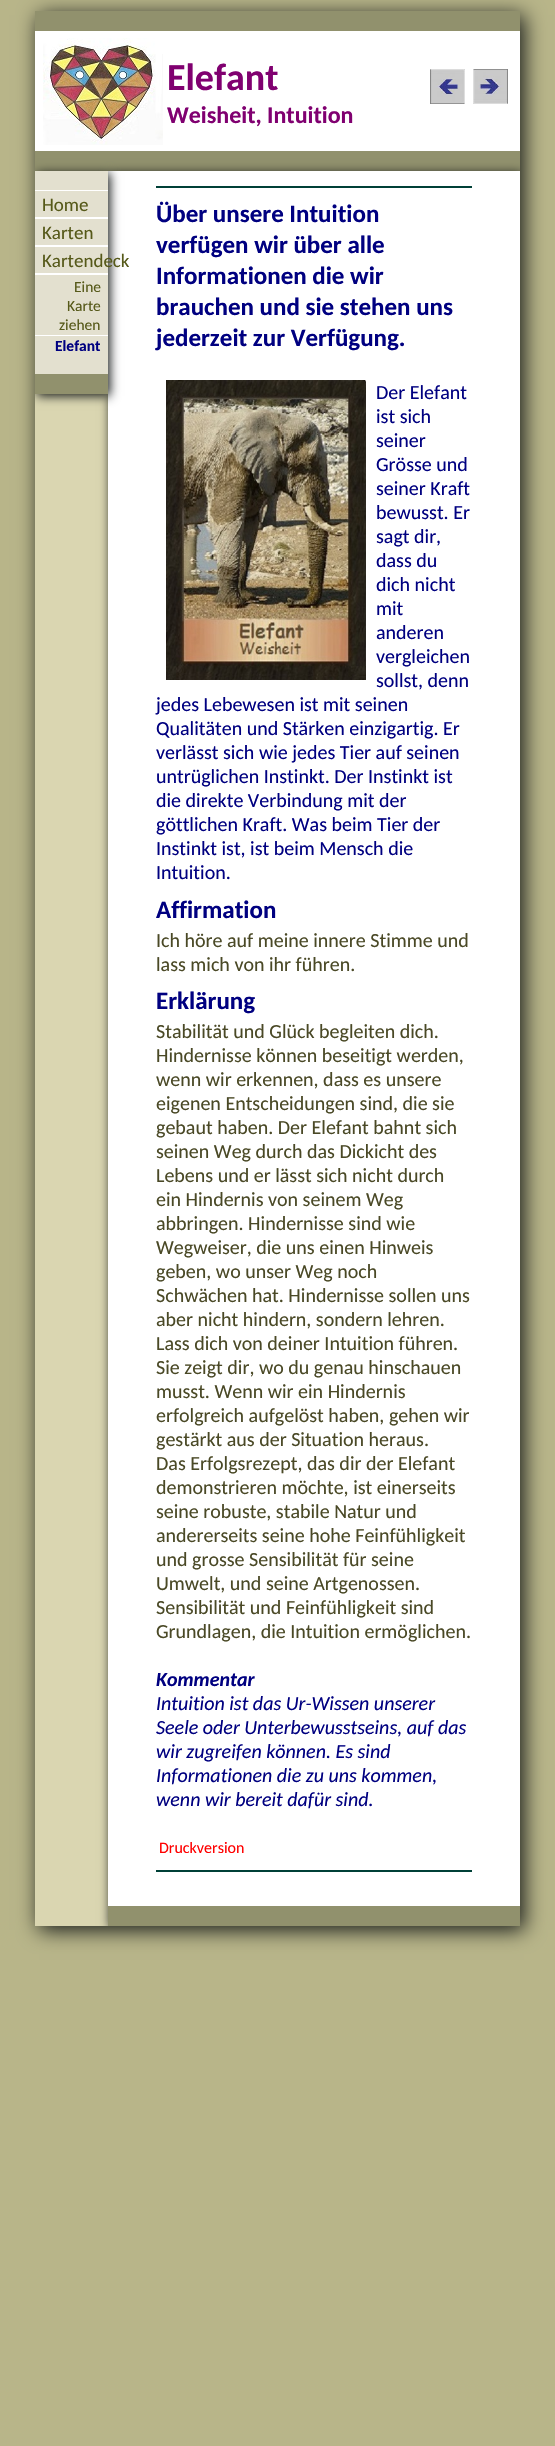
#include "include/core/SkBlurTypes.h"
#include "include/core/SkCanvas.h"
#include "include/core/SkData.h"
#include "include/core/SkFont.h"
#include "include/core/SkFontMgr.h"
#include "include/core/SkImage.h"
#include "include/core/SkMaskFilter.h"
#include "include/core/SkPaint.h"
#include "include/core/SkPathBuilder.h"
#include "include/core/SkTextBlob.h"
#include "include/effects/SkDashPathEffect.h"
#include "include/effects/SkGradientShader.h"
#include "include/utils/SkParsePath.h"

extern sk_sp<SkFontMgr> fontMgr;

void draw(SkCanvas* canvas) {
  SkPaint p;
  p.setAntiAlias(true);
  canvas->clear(SkColorSetRGB(184, 181, 137));
  p.setColor(SkColorSetRGB(20, 24, 23));
  p.setMaskFilter(SkMaskFilter::MakeBlur(kNormal_SkBlurStyle, 10));
  canvas->drawRect(SkRect::MakeLTRB(39, 15, 524, 1930), p);
  p.setMaskFilter(nullptr);
  p.setColor(SkColorSetRGB(218, 214, 177));
  canvas->drawRect(SkRect::MakeLTRB(35, 394, 108, 1926), p);
  p.setColor(SK_ColorWHITE);
  canvas->drawRect(SkRect::MakeLTRB(35, 31, 520, 151), p);
  p.setColor(SkColorSetRGB(145, 145, 109));
  canvas->drawRect(SkRect::MakeLTRB(35, 11, 520, 31), p);
  canvas->drawRect(SkRect::MakeLTRB(35, 151, 520, 171), p);
  canvas->drawImageRect(SkImages::DeferredFromEncodedData(SkData::MakeFromFileName("images/1.png")), SkRect::MakeLTRB(43, 38, 163, 145), SkSamplingOptions());
  canvas->drawImageRect(SkImages::DeferredFromEncodedData(SkData::MakeFromFileName("images/2.png")), SkRect::MakeLTRB(430, 69, 465, 104), SkSamplingOptions());
  canvas->drawImageRect(SkImages::DeferredFromEncodedData(SkData::MakeFromFileName("images/3.png")), SkRect::MakeLTRB(473, 69, 508, 104), SkSamplingOptions());
  canvas->save();
  canvas->clipRect(SkRect::MakeLTRB(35, 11, 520, 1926));
  p.setColor(SkColorSetRGB(20, 24, 23));
  p.setMaskFilter(SkMaskFilter::MakeBlur(kNormal_SkBlurStyle, 5));
  canvas->drawRect(SkRect::MakeLTRB(110, 173, 522, 1928), p);
  p.setMaskFilter(nullptr);
  canvas->restore();
  p.setColor(SK_ColorWHITE);
  canvas->drawRect(SkRect::MakeLTRB(108, 171, 520, 1906), p);
  canvas->save();
  canvas->clipRect(SkRect::MakeLTRB(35, 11, 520, 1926));
  p.setColor(SkColorSetRGB(20, 24, 23));
  p.setMaskFilter(SkMaskFilter::MakeBlur(kNormal_SkBlurStyle, 5));
  canvas->drawRect(SkRect::MakeLTRB(37, 173, 110, 396), p);
  p.setMaskFilter(nullptr);
  canvas->restore();
  p.setColor(SkColorSetRGB(227, 224, 207));
  canvas->drawRect(SkRect::MakeLTRB(35, 171, 108, 374), p);
  p.setColor(SkColorSetRGB(145, 145, 109));
  canvas->drawRect(SkRect::MakeLTRB(35, 374, 108, 394), p);
  p.setColor(SK_ColorWHITE);
  canvas->drawRect(SkRect::MakeLTRB(35, 190, 108, 191), p);
  canvas->drawRect(SkRect::MakeLTRB(35, 217, 108, 219), p);
  canvas->drawRect(SkRect::MakeLTRB(35, 245, 108, 247), p);
  canvas->drawRect(SkRect::MakeLTRB(35, 273, 108, 275), p);
  canvas->drawRect(SkRect::MakeLTRB(35, 335, 108, 336), p);
  p.setColor(SkColorSetRGB(145, 145, 109));
  canvas->drawRect(SkRect::MakeLTRB(108, 1906, 520, 1926), p);
  p.setColor(SkColorSetRGB(0, 64, 55));
  canvas->drawRect(SkRect::MakeLTRB(156, 186, 472, 188), p);
  canvas->drawImageRect(SkImages::DeferredFromEncodedData(SkData::MakeFromFileName("images/4.png")), SkRect::MakeLTRB(166, 380, 366, 680), SkSamplingOptions());
  canvas->drawRect(SkRect::MakeLTRB(156, 1870, 472, 1872), p);
  SkFont font1(fontMgr->matchFamilyStyle("Carlito", SkFontStyle::Bold()), 38);
  font1.setSubpixel(true);
  p.setColor(SkColorSetRGB(128, 0, 112));
  canvas->drawString("Elefant", 167, 90, font1, p);
  SkFont font2(fontMgr->matchFamilyStyle("Carlito", SkFontStyle::Bold()), 24);
  font2.setSubpixel(true);
  canvas->drawString("Weisheit, Intuition", 167, 123, font2, p);
  SkFont font3(fontMgr->matchFamilyStyle("Carlito", SkFontStyle::Normal()), 19);
  font3.setSubpixel(true);
  p.setColor(SkColorSetRGB(86, 89, 25));
  canvas->drawString("Home", 42, 211, font3, p);
  canvas->drawString("Karten", 42, 239, font3, p);
  canvas->drawString("Kartendeck", 42, 267, font3, p);
  SkFont font4(fontMgr->matchFamilyStyle("Carlito", SkFontStyle::Normal()), 15.5f);
  font4.setSubpixel(true);
  canvas->drawString("Eine", 74, 292, font4, p);
  canvas->drawString("Karte", 67, 311, font4, p);
  canvas->drawString("ziehen", 59, 330, font4, p);
  SkFont font5(fontMgr->matchFamilyStyle("Carlito", SkFontStyle::Bold()), 15.5f);
  font5.setSubpixel(true);
  p.setColor(SkColorSetRGB(0, 0, 128));
  canvas->drawString("Elefant", 55, 351, font5, p);
  SkFont font6(fontMgr->matchFamilyStyle("Carlito", SkFontStyle::Bold()), 25);
  font6.setSubpixel(true);
  canvas->drawString("Über unsere Intuition", 156, 222, font6, p);
  canvas->drawString("verfügen wir über alle", 156, 253, font6, p);
  canvas->drawString("Informationen die wir", 156, 284, font6, p);
  canvas->drawString("brauchen und sie stehen uns", 156, 315, font6, p);
  canvas->drawString("jederzeit zur Verfügung.", 156, 346, font6, p);
  SkFont font7(fontMgr->matchFamilyStyle("Carlito", SkFontStyle::Normal()), 20);
  font7.setSubpixel(true);
  canvas->drawString("Der Elefant", 376, 399, font7, p);
  canvas->drawString("ist sich", 376, 423, font7, p);
  canvas->drawString("seiner", 376, 447, font7, p);
  canvas->drawString("Grösse und", 376, 471, font7, p);
  canvas->drawString("seiner Kraft", 376, 495, font7, p);
  canvas->drawString("bewusst. Er", 376, 519, font7, p);
  canvas->drawString("sagt dir,", 376, 543, font7, p);
  canvas->drawString("dass du", 376, 567, font7, p);
  canvas->drawString("dich nicht", 376, 591, font7, p);
  canvas->drawString("mit", 376, 615, font7, p);
  canvas->drawString("anderen", 376, 639, font7, p);
  canvas->drawString("vergleichen", 376, 663, font7, p);
  canvas->drawString("sollst, denn", 376, 687, font7, p);
  canvas->drawString("jedes Lebewesen ist mit seinen", 156, 711, font7, p);
  canvas->drawString("Qualitäten und Stärken einzigartig. Er", 156, 735, font7, p);
  canvas->drawString("verlässt sich wie jedes Tier auf seinen", 156, 759, font7, p);
  canvas->drawString("untrüglichen Instinkt. Der Instinkt ist", 156, 783, font7, p);
  canvas->drawString("die direkte Verbindung mit der", 156, 807, font7, p);
  canvas->drawString("göttlichen Kraft. Was beim Tier der", 156, 831, font7, p);
  canvas->drawString("Instinkt ist, ist beim Mensch die", 156, 855, font7, p);
  canvas->drawString("Intuition.", 156, 879, font7, p);
  canvas->drawString("Affirmation", 156, 918, font6, p);
  p.setColor(SkColorSetRGB(74, 73, 38));
  canvas->drawString("Ich höre auf meine innere Stimme und", 156, 947, font7, p);
  canvas->drawString("lass mich von ihr führen.", 156, 971, font7, p);
  p.setColor(SkColorSetRGB(0, 0, 128));
  canvas->drawString("Erklärung", 156, 1009, font6, p);
  p.setColor(SkColorSetRGB(74, 73, 38));
  canvas->drawString("Stabilität und Glück begleiten dich.", 156, 1038, font7, p);
  canvas->drawString("Hindernisse können beseitigt werden,", 156, 1062, font7, p);
  canvas->drawString("wenn wir erkennen, dass es unsere", 156, 1086, font7, p);
  canvas->drawString("eigenen Entscheidungen sind, die sie", 156, 1110, font7, p);
  canvas->drawString("gebaut haben. Der Elefant bahnt sich", 156, 1134, font7, p);
  canvas->drawString("seinen Weg durch das Dickicht des", 156, 1158, font7, p);
  canvas->drawString("Lebens und er lässt sich nicht durch", 156, 1182, font7, p);
  canvas->drawString("ein Hindernis von seinem Weg", 156, 1206, font7, p);
  canvas->drawString("abbringen. Hindernisse sind wie", 156, 1230, font7, p);
  canvas->drawString("Wegweiser, die uns einen Hinweis", 156, 1254, font7, p);
  canvas->drawString("geben, wo unser Weg noch", 156, 1278, font7, p);
  canvas->drawString("Schwächen hat. Hindernisse sollen uns", 156, 1302, font7, p);
  canvas->drawString("aber nicht hindern, sondern lehren.", 156, 1326, font7, p);
  canvas->drawString("Lass dich von deiner Intuition führen.", 156, 1350, font7, p);
  canvas->drawString("Sie zeigt dir, wo du genau hinschauen", 156, 1374, font7, p);
  canvas->drawString("musst. Wenn wir ein Hindernis", 156, 1398, font7, p);
  canvas->drawString("erfolgreich aufgelöst haben, gehen wir", 156, 1422, font7, p);
  canvas->drawString("gestärkt aus der Situation heraus.", 156, 1446, font7, p);
  canvas->drawString("Das Erfolgsrezept, das dir der Elefant", 156, 1470, font7, p);
  canvas->drawString("demonstrieren möchte, ist einerseits", 156, 1494, font7, p);
  canvas->drawString("seine robuste, stabile Natur und", 156, 1518, font7, p);
  canvas->drawString("andererseits seine hohe Feinfühligkeit", 156, 1542, font7, p);
  canvas->drawString("und grosse Sensibilität für seine", 156, 1566, font7, p);
  canvas->drawString("Umwelt, und seine Artgenossen.", 156, 1590, font7, p);
  canvas->drawString("Sensibilität und Feinfühligkeit sind", 156, 1614, font7, p);
  canvas->drawString("Grundlagen, die Intuition ermöglichen.", 156, 1638, font7, p);
  SkFont font8(fontMgr->matchFamilyStyle("Carlito", SkFontStyle::BoldItalic()), 20);
  font8.setSubpixel(true);
  p.setColor(SkColorSetRGB(0, 0, 128));
  canvas->drawString("Kommentar", 156, 1686, font8, p);
  SkFont font9(fontMgr->matchFamilyStyle("Carlito", SkFontStyle::Italic()), 20);
  font9.setSubpixel(true);
  canvas->drawString("Intuition ist das Ur-Wissen unserer", 156, 1710, font9, p);
  canvas->drawString("Seele oder Unterbewusstseins, auf das", 156, 1734, font9, p);
  canvas->drawString("wir zugreifen können. Es sind", 156, 1758, font9, p);
  canvas->drawString("Informationen die zu uns kommen,", 156, 1782, font9, p);
  canvas->drawString("wenn wir bereit dafür sind.", 156, 1806, font9, p);
  SkFont font10(fontMgr->matchFamilyStyle("Carlito", SkFontStyle::Normal()), 16);
  font10.setSubpixel(true);
  p.setColor(SkColorSetRGB(255, 0, 0));
  canvas->drawString("Druckversion", 159, 1853, font10, p);
}
